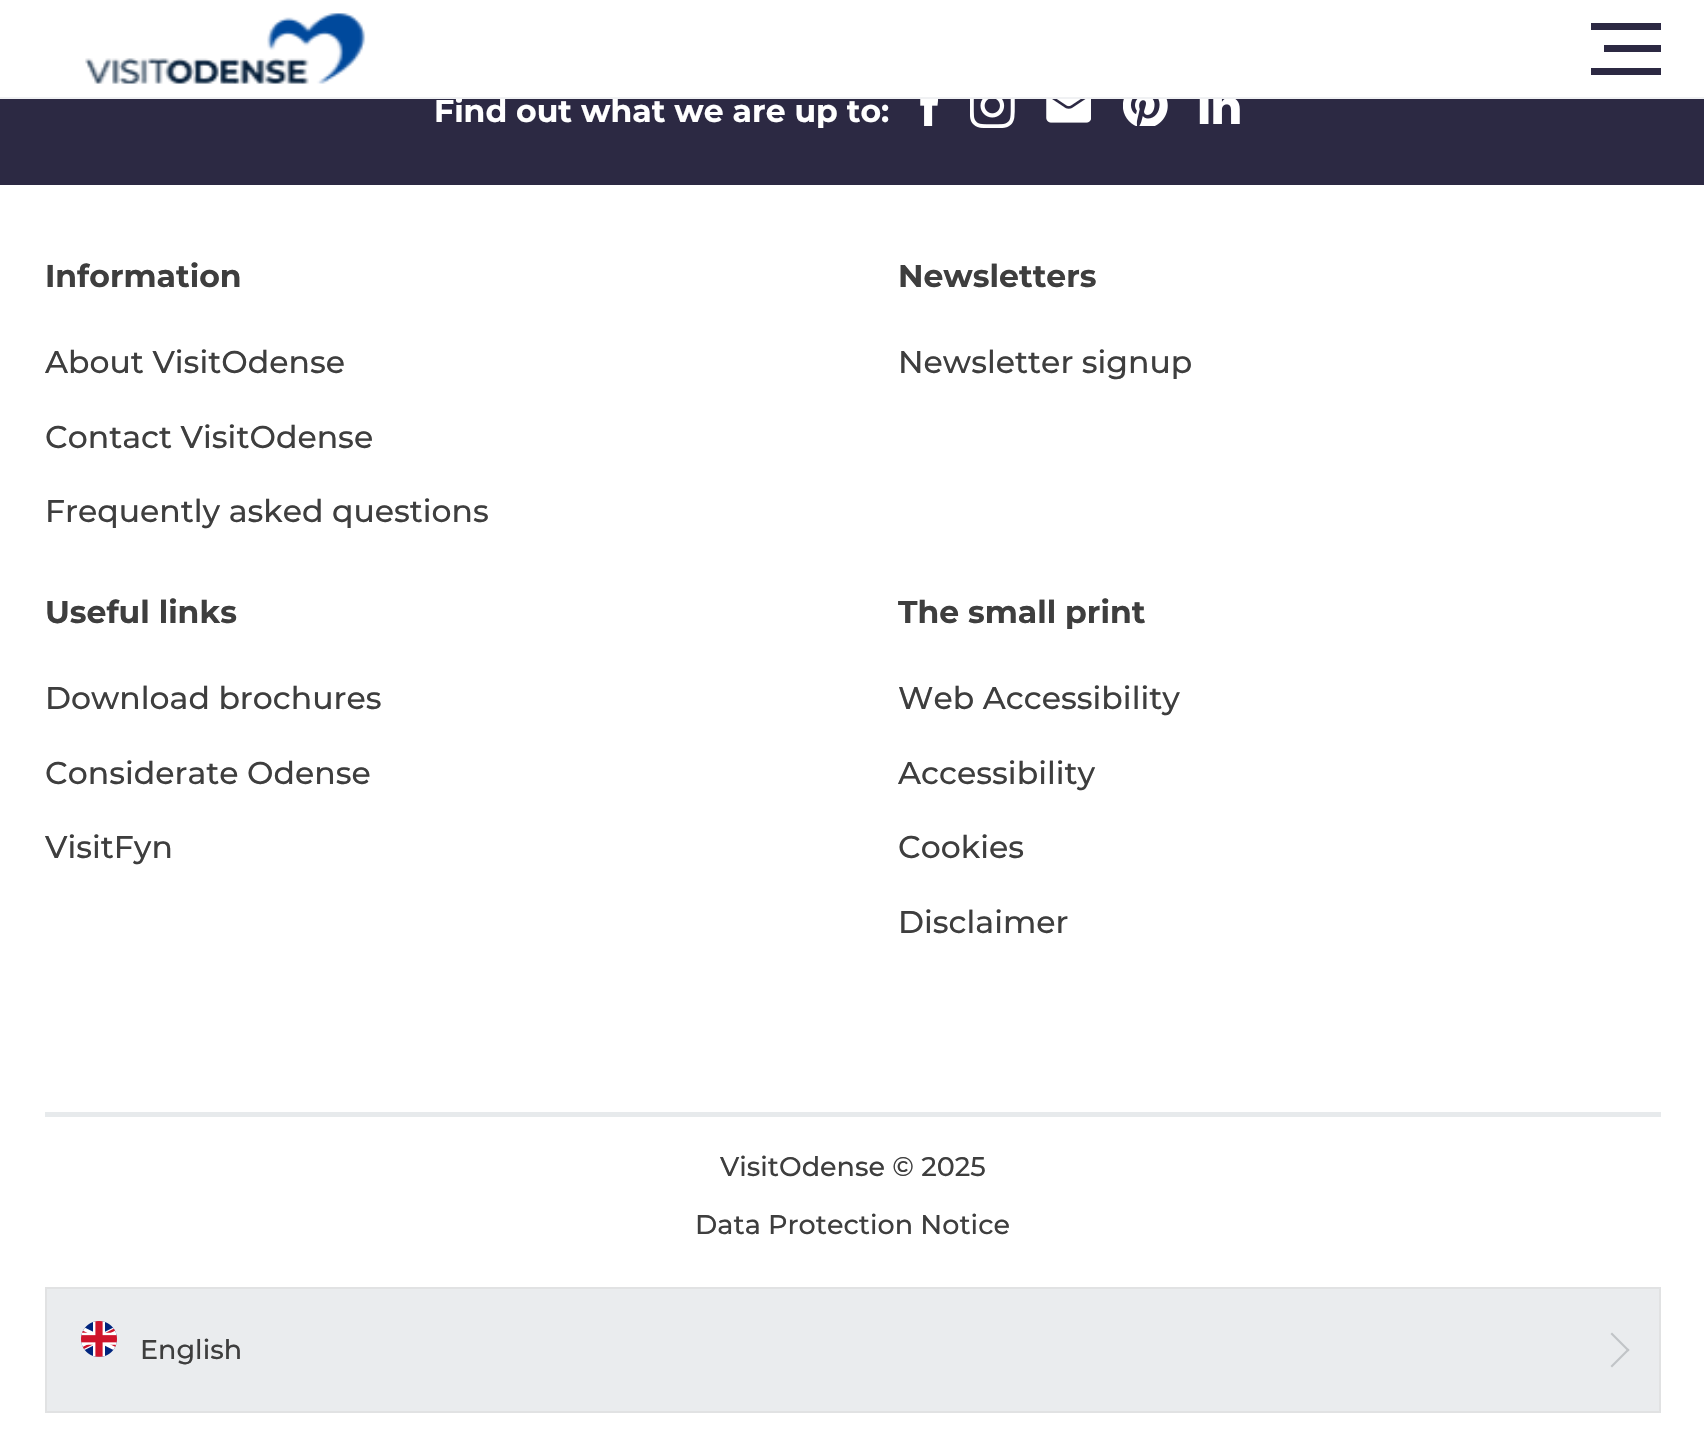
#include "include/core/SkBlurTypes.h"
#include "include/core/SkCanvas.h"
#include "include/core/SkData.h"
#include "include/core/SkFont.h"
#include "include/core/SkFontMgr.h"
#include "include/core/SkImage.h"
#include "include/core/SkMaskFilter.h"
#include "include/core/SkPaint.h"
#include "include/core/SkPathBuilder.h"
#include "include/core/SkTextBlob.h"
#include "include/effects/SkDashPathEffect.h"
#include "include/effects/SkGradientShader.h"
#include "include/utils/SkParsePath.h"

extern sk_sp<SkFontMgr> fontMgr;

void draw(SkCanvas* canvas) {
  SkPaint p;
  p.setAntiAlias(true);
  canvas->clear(SK_ColorWHITE);
  canvas->drawImageRect(SkImages::DeferredFromEncodedData(SkData::MakeFromFileName("images/1.png")), SkRect::MakeLTRB(85, 13, 366, 84), SkSamplingOptions());
  p.setColor(SkColorSetRGB(44, 41, 67));
  canvas->drawRect(SkRect::MakeLTRB(1591, 23, 1661, 30), p);
  canvas->drawRect(SkRect::MakeLTRB(1604, 45, 1661, 52), p);
  canvas->drawRect(SkRect::MakeLTRB(1591, 68, 1661, 75), p);
  canvas->drawRect(SkRect::MakeLTRB(0, 99, 1704, 185), p);
  canvas->drawImageRect(SkImages::DeferredFromEncodedData(SkData::MakeFromFileName("images/2.png")), SkRect::MakeLTRB(920, 99, 938, 126), SkSamplingOptions());
  canvas->drawImageRect(SkImages::DeferredFromEncodedData(SkData::MakeFromFileName("images/3.png")), SkRect::MakeLTRB(970, 99, 1015, 128), SkSamplingOptions());
  canvas->drawImageRect(SkImages::DeferredFromEncodedData(SkData::MakeFromFileName("images/4.png")), SkRect::MakeLTRB(1046, 99, 1091, 123), SkSamplingOptions());
  canvas->drawImageRect(SkImages::DeferredFromEncodedData(SkData::MakeFromFileName("images/5.png")), SkRect::MakeLTRB(1123, 99, 1168, 126), SkSamplingOptions());
  canvas->drawImageRect(SkImages::DeferredFromEncodedData(SkData::MakeFromFileName("images/6.png")), SkRect::MakeLTRB(1199, 99, 1240, 124), SkSamplingOptions());
  p.setColor(SkColorSetRGB(231, 234, 236));
  canvas->drawRect(SkRect::MakeLTRB(45, 1112, 1661, 1117), p);
  p.setColor(SkColorSetRGB(234, 236, 238));
  canvas->drawRect(SkRect::MakeLTRB(46, 1288, 1660, 1412), p);
  p.setStyle(SkPaint::kStroke_Style);
  p.setStrokeWidth(2);
  p.setColor(SkColorSetRGB(225, 226, 227));
  canvas->drawRect(SkRect::MakeLTRB(46, 1288, 1660, 1412), p);
  canvas->drawImageRect(SkImages::DeferredFromEncodedData(SkData::MakeFromFileName("images/7.png")), SkRect::MakeLTRB(81, 1321, 117, 1357), SkSamplingOptions());
  p.setStyle(SkPaint::kFill_Style);
  p.setColor(SkColorSetRGB(193, 196, 199));
  canvas->drawPath(SkPathBuilder().moveTo(1612, 1332.5f).lineTo(1629.5f, 1350).lineTo(1628, 1351.5f).lineTo(1610.5f, 1334).close().detach(), p);
  canvas->drawPath(SkPathBuilder().moveTo(1628, 1348.5f).lineTo(1629.5f, 1350).lineTo(1612, 1367.5f).lineTo(1610.5f, 1366).close().detach(), p);
  SkFont font1(fontMgr->matchFamilyStyle("Montserrat", SkFontStyle::Bold()), 31.5f);
  font1.setSubpixel(true);
  p.setColor(SK_ColorWHITE);
  canvas->drawString("Find out what we are up to:", 434, 122, font1, p);
  p.setColor(SkColorSetRGB(240, 241, 243));
  canvas->drawRect(SkRect::MakeLTRB(0, 97, 1704, 99), p);
  p.setColor(SkColorSetRGB(62, 62, 62));
  canvas->drawString("Information", 45, 287, font1, p);
  SkFont font2(fontMgr->matchFamilyStyle("Montserrat", SkFontStyle(500, SkFontStyle::kNormal_Width, SkFontStyle::kUpright_Slant)), 31.5f);
  font2.setSubpixel(true);
  canvas->drawString("About VisitOdense", 45, 373, font2, p);
  canvas->drawString("Contact VisitOdense", 45, 448, font2, p);
  canvas->drawString("Frequently asked questions", 45, 522, font2, p);
  canvas->drawString("Newsletters", 898, 287, font1, p);
  canvas->drawString("Newsletter signup", 898, 373, font2, p);
  canvas->drawString("Useful links", 45, 623, font1, p);
  canvas->drawString("Download brochures", 45, 709, font2, p);
  canvas->drawString("Considerate Odense", 45, 784, font2, p);
  canvas->drawString("VisitFyn", 45, 858, font2, p);
  canvas->drawString("The small print", 898, 623, font1, p);
  canvas->drawString("Web Accessibility", 898, 709, font2, p);
  canvas->drawString("Accessibility", 898, 784, font2, p);
  canvas->drawString("Cookies", 898, 858, font2, p);
  canvas->drawString("Disclaimer", 898, 933, font2, p);
  SkFont font3(fontMgr->matchFamilyStyle("Montserrat", SkFontStyle(500, SkFontStyle::kNormal_Width, SkFontStyle::kUpright_Slant)), 27);
  font3.setSubpixel(true);
  canvas->drawString("VisitOdense © 2025", 720, 1176, font3, p);
  canvas->drawString("Data Protection Notice", 695, 1234, font3, p);
  canvas->drawString("English", 140, 1359, font3, p);
}
